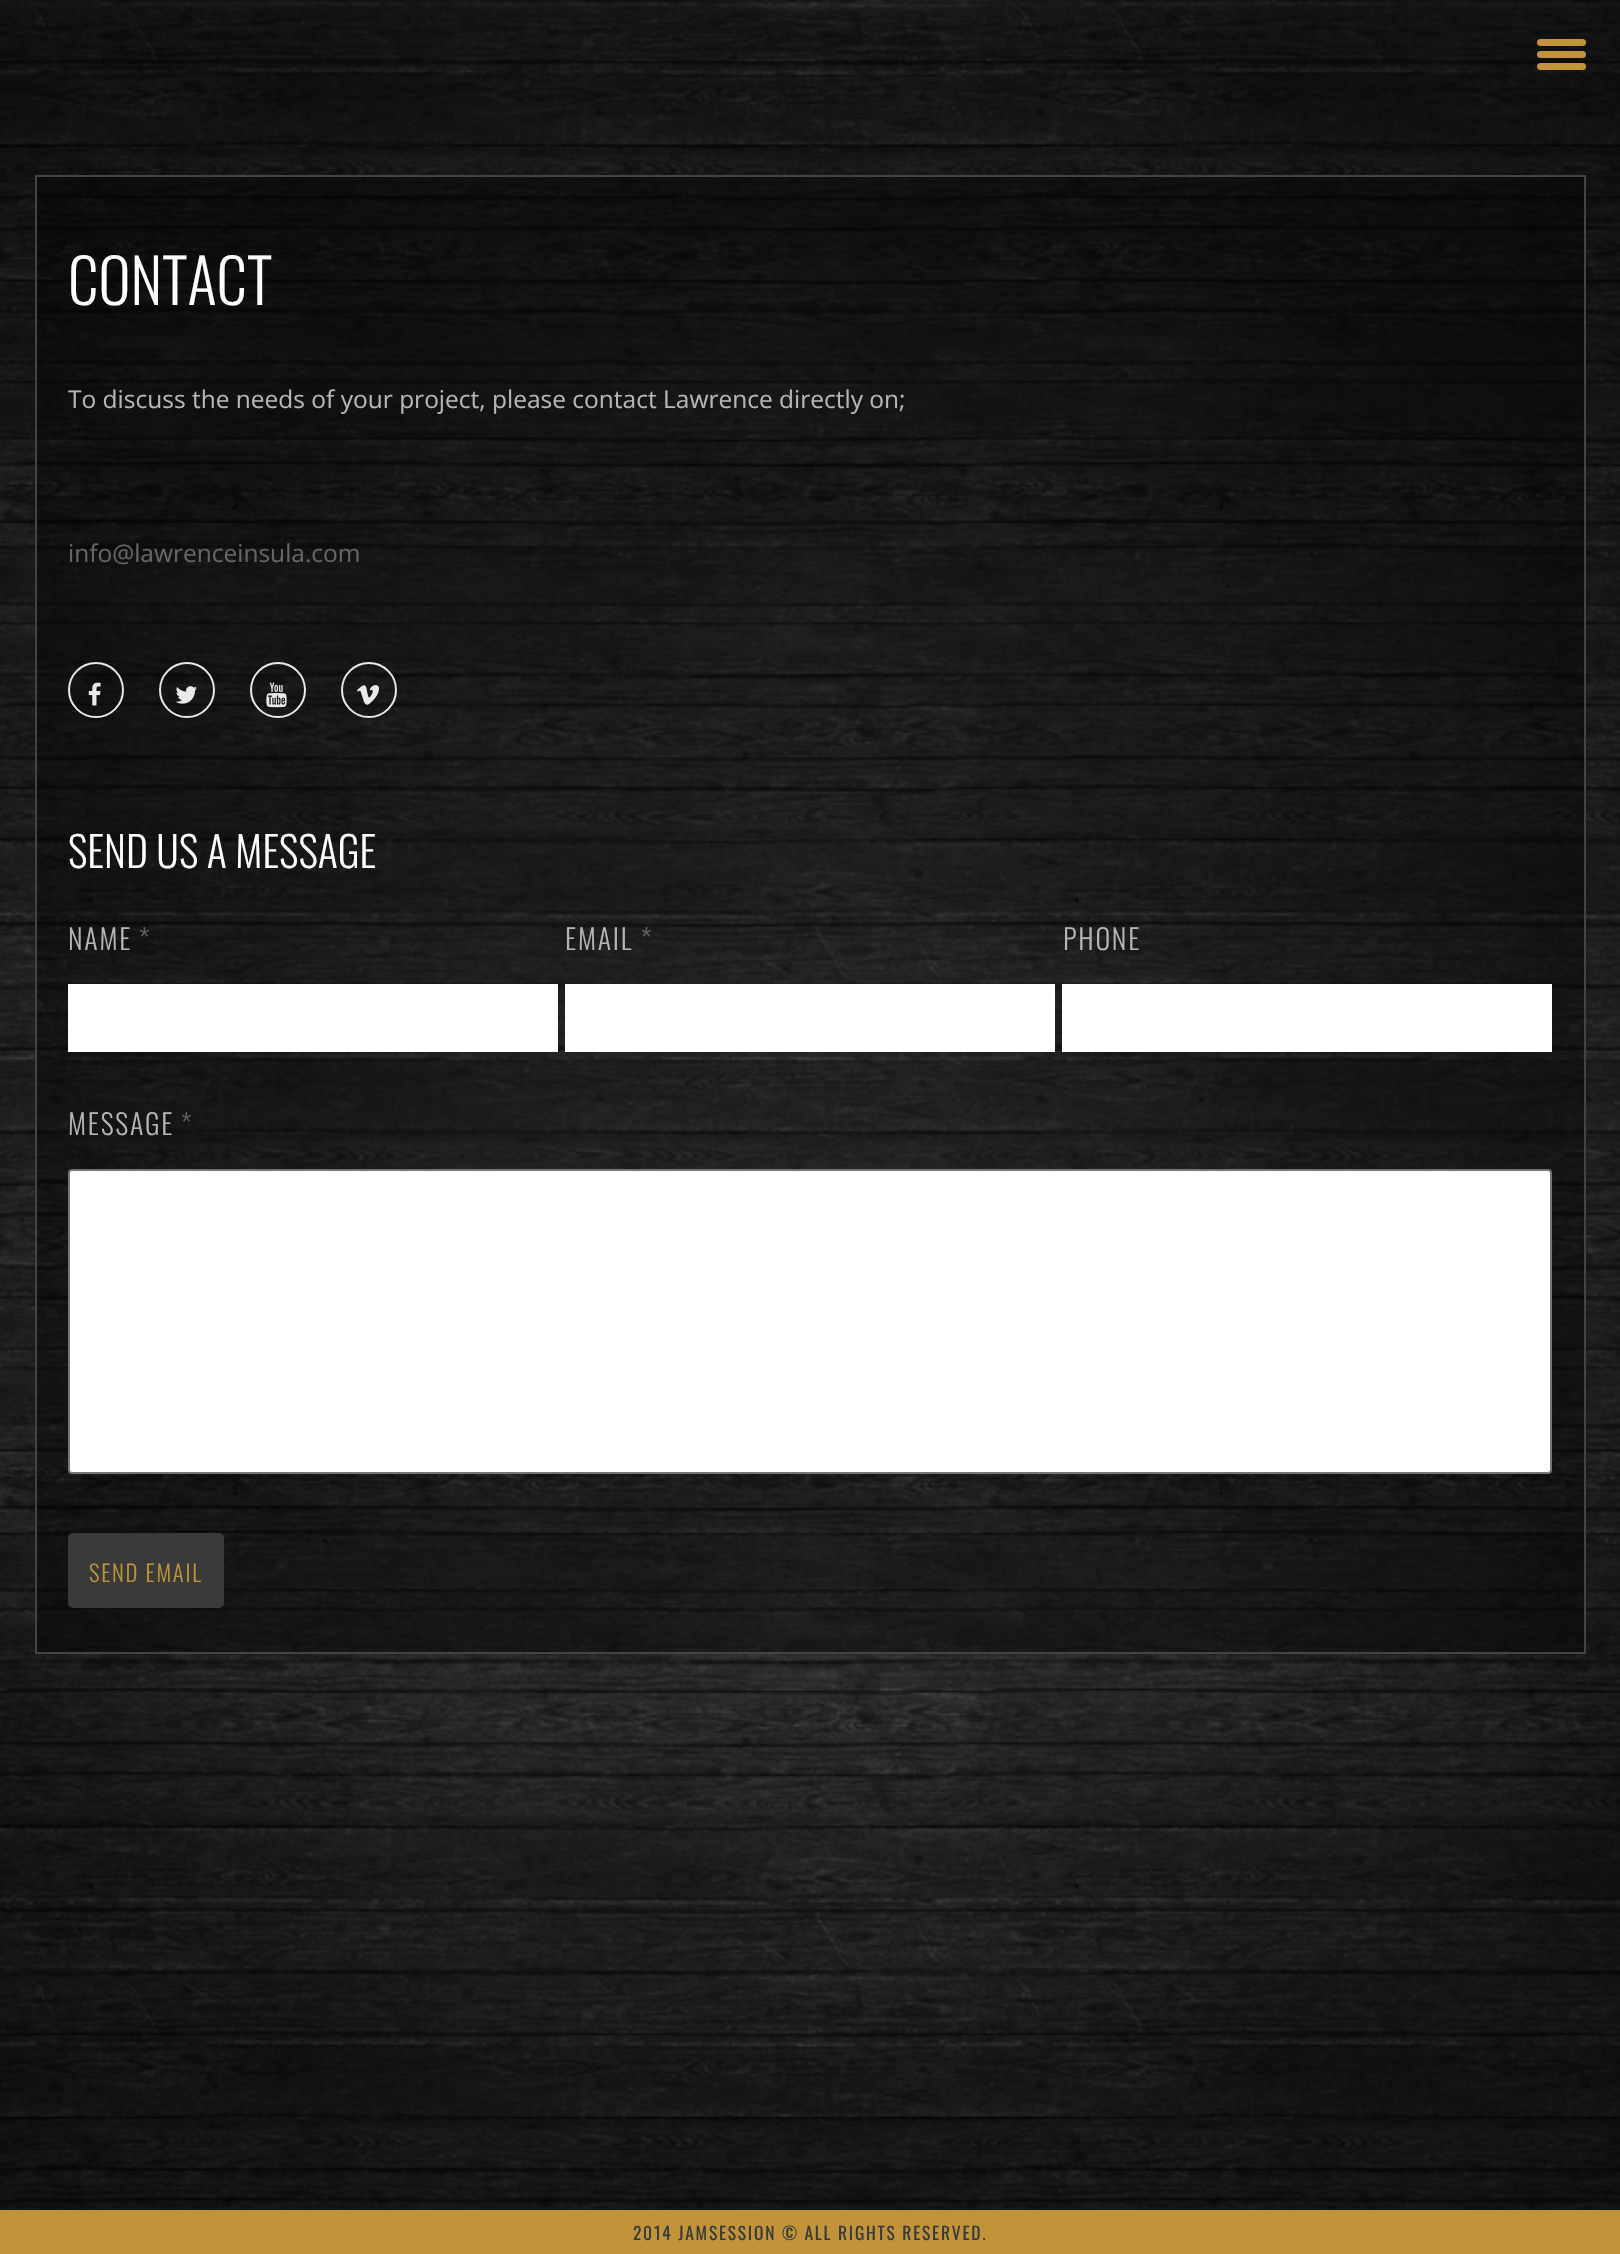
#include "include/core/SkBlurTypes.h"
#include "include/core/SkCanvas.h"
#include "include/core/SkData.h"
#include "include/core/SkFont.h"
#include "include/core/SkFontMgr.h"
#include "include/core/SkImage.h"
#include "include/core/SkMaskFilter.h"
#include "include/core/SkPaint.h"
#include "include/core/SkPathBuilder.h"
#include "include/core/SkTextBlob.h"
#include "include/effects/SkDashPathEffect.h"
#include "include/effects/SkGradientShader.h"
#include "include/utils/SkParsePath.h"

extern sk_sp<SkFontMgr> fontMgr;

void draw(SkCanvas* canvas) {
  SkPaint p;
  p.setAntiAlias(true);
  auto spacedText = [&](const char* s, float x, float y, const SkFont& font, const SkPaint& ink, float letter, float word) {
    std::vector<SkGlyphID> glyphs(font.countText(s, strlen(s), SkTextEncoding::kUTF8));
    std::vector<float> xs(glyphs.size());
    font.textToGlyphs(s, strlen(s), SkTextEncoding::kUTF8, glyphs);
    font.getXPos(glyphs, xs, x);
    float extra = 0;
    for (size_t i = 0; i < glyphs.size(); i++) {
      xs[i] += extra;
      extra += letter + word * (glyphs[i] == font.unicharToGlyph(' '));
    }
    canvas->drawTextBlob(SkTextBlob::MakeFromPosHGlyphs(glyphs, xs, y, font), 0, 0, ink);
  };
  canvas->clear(SK_ColorWHITE);
  canvas->drawImageRect(SkImages::DeferredFromEncodedData(SkData::MakeFromFileName("images/1.png")), SkRect::MakeLTRB(0, 0, 1620, 2210), SkSamplingOptions());
  p.setColor(SkColorSetRGB(193, 148, 58));
  canvas->drawRoundRect(SkRect::MakeLTRB(1537, 39, 1586, 46), 3.5f, 3.5f, p);
  canvas->drawRoundRect(SkRect::MakeLTRB(1537, 51, 1586, 58), 3.5f, 3.5f, p);
  canvas->drawRoundRect(SkRect::MakeLTRB(1537, 63, 1586, 70), 3.5f, 3.5f, p);
  p.setColor(SkColorSetARGB(102, 1, 1, 1));
  canvas->drawRect(SkRect::MakeLTRB(36, 176, 1585, 1653), p);
  p.setStyle(SkPaint::kStroke_Style);
  p.setStrokeWidth(2);
  p.setColor(SkColorSetRGB(67, 69, 67));
  canvas->drawRect(SkRect::MakeLTRB(36, 176, 1585, 1653), p);
  p.setColor(SkColorSetARGB(230, 255, 255, 255));
  canvas->drawCircle(96, 690, 27, p);
  canvas->drawImageRect(SkImages::DeferredFromEncodedData(SkData::MakeFromFileName("images/2.png")), SkRect::MakeLTRB(88, 682, 101, 706), SkSamplingOptions());
  canvas->drawCircle(187, 690, 27, p);
  canvas->drawImageRect(SkImages::DeferredFromEncodedData(SkData::MakeFromFileName("images/3.png")), SkRect::MakeLTRB(175, 686, 197, 704), SkSamplingOptions());
  canvas->drawCircle(278, 690, 27, p);
  canvas->drawImageRect(SkImages::DeferredFromEncodedData(SkData::MakeFromFileName("images/4.png")), SkRect::MakeLTRB(266, 682, 287, 708), SkSamplingOptions());
  canvas->drawCircle(369, 690, 27, p);
  canvas->drawImageRect(SkImages::DeferredFromEncodedData(SkData::MakeFromFileName("images/5.png")), SkRect::MakeLTRB(357, 685, 380, 705), SkSamplingOptions());
  p.setStyle(SkPaint::kFill_Style);
  p.setColor(SK_ColorWHITE);
  canvas->drawRect(SkRect::MakeLTRB(68, 984, 558, 1052), p);
  canvas->drawRect(SkRect::MakeLTRB(565, 984, 1055, 1052), p);
  canvas->drawRect(SkRect::MakeLTRB(1062, 984, 1552, 1052), p);
  canvas->drawRoundRect(SkRect::MakeLTRB(69, 1170, 1551, 1473), 3, 3, p);
  p.setStyle(SkPaint::kStroke_Style);
  p.setColor(SkColorSetRGB(118, 118, 118));
  canvas->drawRoundRect(SkRect::MakeLTRB(69, 1170, 1551, 1473), 3, 3, p);
  p.setStyle(SkPaint::kFill_Style);
  p.setColor(SkColorSetRGB(58, 58, 58));
  canvas->drawRoundRect(SkRect::MakeLTRB(68, 1533, 224, 1608), 5, 5, p);
  p.setColor(SkColorSetRGB(193, 148, 58));
  canvas->drawRect(SkRect::MakeLTRB(0, 2210, 1620, 2254), p);
  SkFont font1(fontMgr->matchFamilyStyle("Oswald", SkFontStyle(300, SkFontStyle::kNormal_Width, SkFontStyle::kUpright_Slant)), 61);
  font1.setSubpixel(true);
  p.setColor(SK_ColorWHITE);
  canvas->drawString("CONTACT", 68, 305, font1, p);
  SkFont font2(fontMgr->matchFamilyStyle("Open Sans", SkFontStyle::Normal()), 24.5f);
  font2.setSubpixel(true);
  p.setColor(SkColorSetRGB(182, 182, 182));
  canvas->drawString("To discuss the needs of your project, please contact Lawrence directly on;", 68, 408, font2, p);
  p.setColor(SkColorSetRGB(102, 102, 102));
  canvas->drawString("info@lawrenceinsula.com", 68, 562, font2, p);
  SkFont font3(fontMgr->matchFamilyStyle("Oswald", SkFontStyle(300, SkFontStyle::kNormal_Width, SkFontStyle::kUpright_Slant)), 42);
  font3.setSubpixel(true);
  p.setColor(SK_ColorWHITE);
  canvas->drawString("SEND US A MESSAGE", 68, 868, font3, p);
  SkFont font4(fontMgr->matchFamilyStyle("Oswald", SkFontStyle(300, SkFontStyle::kNormal_Width, SkFontStyle::kUpright_Slant)), 28);
  font4.setSubpixel(true);
  p.setColor(SkColorSetRGB(182, 182, 182));
  spacedText("NAME", 68, 950, font4, p, 1.75f, 0);
  p.setColor(SkColorSetRGB(102, 102, 102));
  spacedText("*", 139, 950, font4, p, 1.75f, 0);
  p.setColor(SkColorSetRGB(182, 182, 182));
  spacedText("EMAIL", 565, 950, font4, p, 1.75f, 0);
  p.setColor(SkColorSetRGB(102, 102, 102));
  spacedText("*", 641, 950, font4, p, 1.75f, 0);
  p.setColor(SkColorSetRGB(182, 182, 182));
  spacedText("PHONE", 1063, 950, font4, p, 1.75f, 0);
  spacedText("MESSAGE", 68, 1135, font4, p, 1.75f, 0);
  p.setColor(SkColorSetRGB(102, 102, 102));
  spacedText("*", 181, 1135, font4, p, 1.75f, 0);
  SkFont font5(fontMgr->matchFamilyStyle("Oswald", SkFontStyle(300, SkFontStyle::kNormal_Width, SkFontStyle::kUpright_Slant)), 22.75f);
  font5.setSubpixel(true);
  p.setColor(SkColorSetRGB(193, 148, 58));
  spacedText("SEND EMAIL", 89, 1582, font5, p, 1.75f, 0);
  SkFont font6(fontMgr->matchFamilyStyle("Oswald", SkFontStyle::Normal()), 17.5f);
  font6.setSubpixel(true);
  p.setColor(SkColorSetRGB(58, 58, 58));
  spacedText("2014 JAMSESSION © ALL RIGHTS RESERVED.", 633, 2240, font6, p, 1.75f, 0);
}
